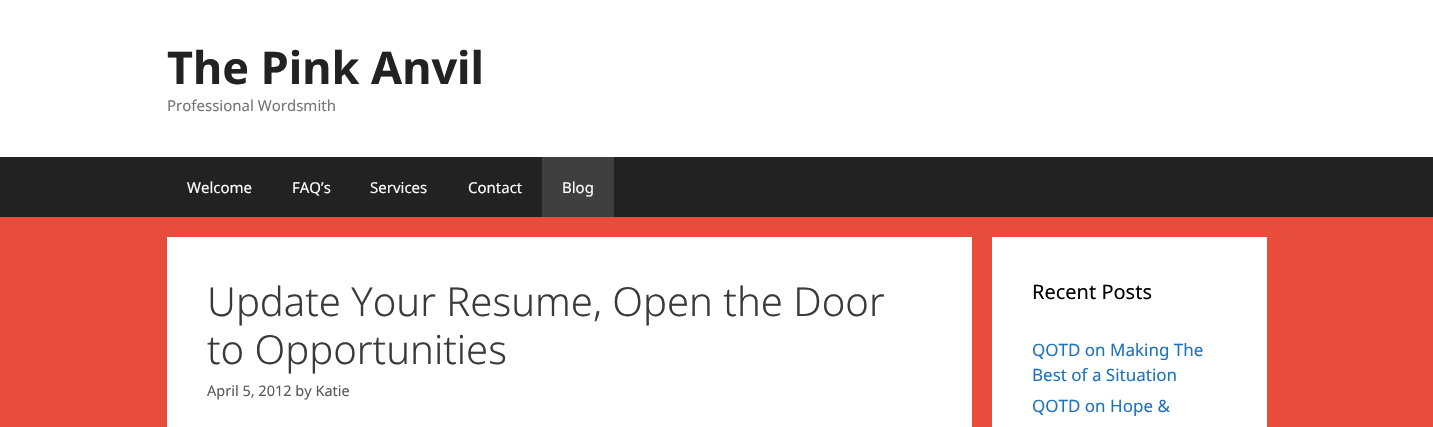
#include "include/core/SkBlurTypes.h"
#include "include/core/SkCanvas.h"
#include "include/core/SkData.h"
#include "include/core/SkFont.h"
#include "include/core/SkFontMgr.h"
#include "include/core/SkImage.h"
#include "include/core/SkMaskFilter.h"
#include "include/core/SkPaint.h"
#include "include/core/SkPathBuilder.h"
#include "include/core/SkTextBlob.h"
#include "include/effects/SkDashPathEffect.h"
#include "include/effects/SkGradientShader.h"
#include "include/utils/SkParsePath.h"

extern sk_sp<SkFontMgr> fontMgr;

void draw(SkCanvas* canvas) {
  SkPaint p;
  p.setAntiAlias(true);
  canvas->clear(SkColorSetRGB(231, 76, 60));
  p.setColor(SK_ColorWHITE);
  canvas->drawRect(SkRect::MakeLTRB(0, 0, 1433, 157), p);
  p.setColor(SkColorSetRGB(34, 34, 34));
  canvas->drawRect(SkRect::MakeLTRB(0, 157, 1433, 217), p);
  p.setColor(SkColorSetRGB(63, 63, 63));
  canvas->drawRect(SkRect::MakeLTRB(542, 157, 614, 217), p);
  p.setColor(SK_ColorWHITE);
  canvas->drawRect(SkRect::MakeLTRB(167, 237, 972, 427), p);
  canvas->drawRect(SkRect::MakeLTRB(992, 237, 1267, 427), p);
  SkFont font1(fontMgr->matchFamilyStyle("Noto Sans", SkFontStyle::Bold()), 45);
  font1.setSubpixel(true);
  p.setColor(SkColorSetRGB(34, 34, 34));
  canvas->drawString("The Pink Anvil", 167, 84, font1, p);
  SkFont font2(fontMgr->matchFamilyStyle("Noto Sans", SkFontStyle::Normal()), 15);
  font2.setSubpixel(true);
  p.setColor(SkColorSetRGB(117, 117, 117));
  canvas->drawString("Professional Wordsmith", 167, 111, font2, p);
  p.setColor(SK_ColorWHITE);
  canvas->drawString("Welcome", 187, 193, font2, p);
  canvas->drawString("FAQ’s", 292, 193, font2, p);
  canvas->drawString("Services", 370, 193, font2, p);
  canvas->drawString("Contact", 468, 193, font2, p);
  canvas->drawString("Blog", 562, 193, font2, p);
  SkFont font3(fontMgr->matchFamilyStyle("Noto Sans", SkFontStyle(300, SkFontStyle::kNormal_Width, SkFontStyle::kUpright_Slant)), 40);
  font3.setSubpixel(true);
  p.setColor(SkColorSetRGB(58, 58, 58));
  canvas->drawString("Update Your Resume, Open the Door", 207, 316, font3, p);
  canvas->drawString("to Opportunities", 207, 364, font3, p);
  SkFont font4(fontMgr->matchFamilyStyle("Noto Sans", SkFontStyle::Normal()), 14.5f);
  font4.setSubpixel(true);
  p.setColor(SkColorSetRGB(89, 89, 89));
  canvas->drawString("April 5, 2012 by Katie", 207, 396, font4, p);
  SkFont font5(fontMgr->matchFamilyStyle("Noto Sans", SkFontStyle::Normal()), 20);
  font5.setSubpixel(true);
  p.setColor(SK_ColorBLACK);
  canvas->drawString("Recent Posts", 1032, 299, font5, p);
  SkFont font6(fontMgr->matchFamilyStyle("Noto Sans", SkFontStyle::Normal()), 17);
  font6.setSubpixel(true);
  p.setColor(SkColorSetRGB(30, 115, 190));
  canvas->drawString("QOTD on Making The", 1032, 356, font6, p);
  canvas->drawString("Best of a Situation", 1032, 381, font6, p);
  canvas->drawString("QOTD on Hope &", 1032, 412, font6, p);
}
